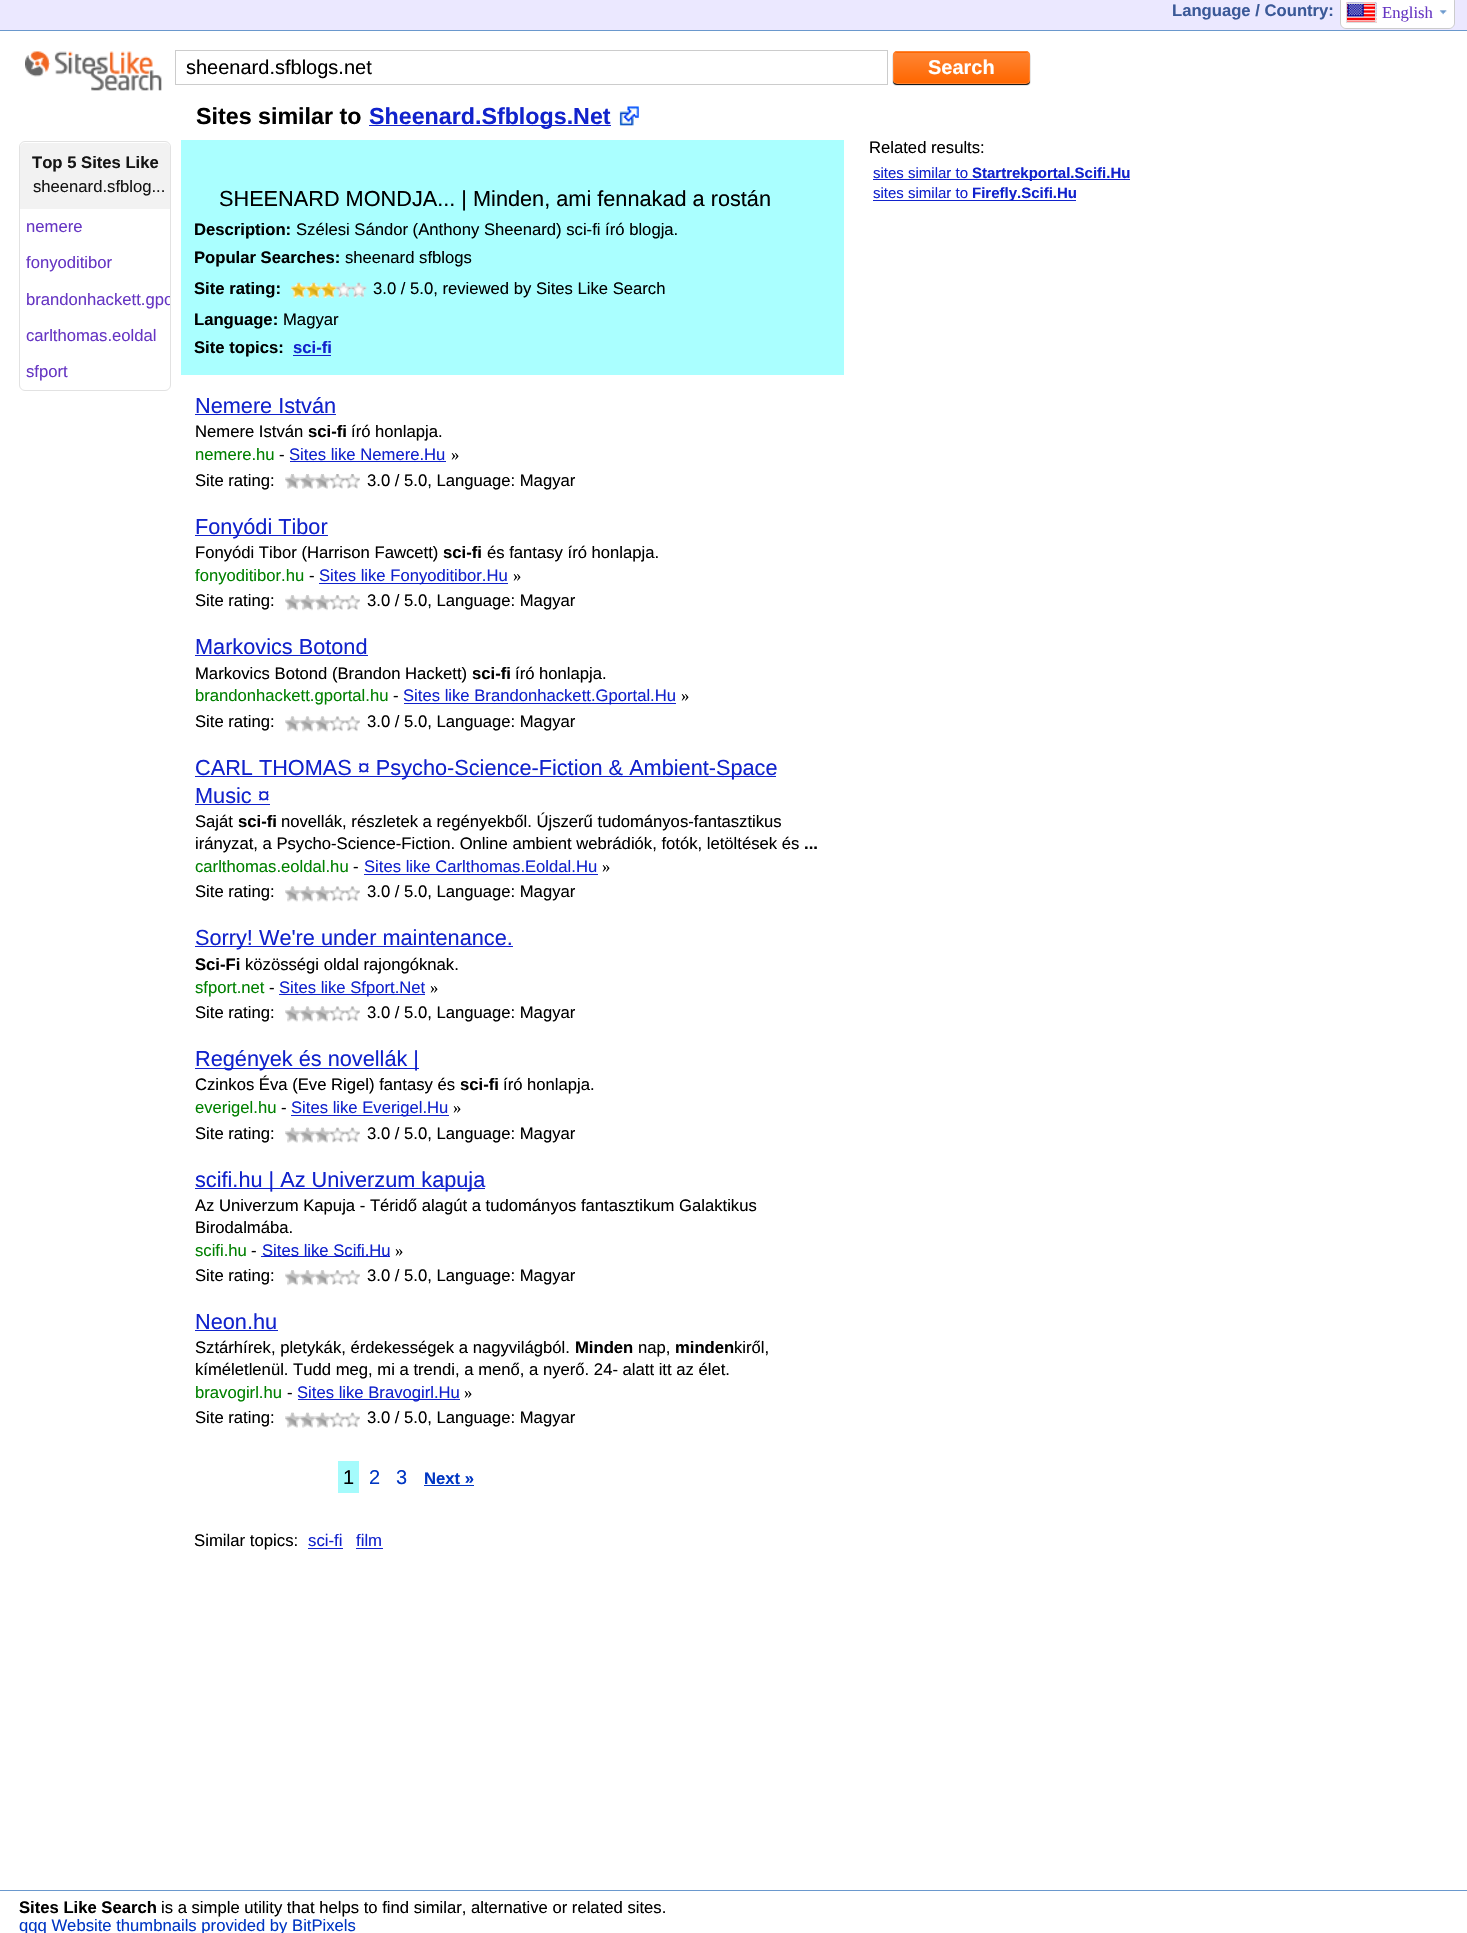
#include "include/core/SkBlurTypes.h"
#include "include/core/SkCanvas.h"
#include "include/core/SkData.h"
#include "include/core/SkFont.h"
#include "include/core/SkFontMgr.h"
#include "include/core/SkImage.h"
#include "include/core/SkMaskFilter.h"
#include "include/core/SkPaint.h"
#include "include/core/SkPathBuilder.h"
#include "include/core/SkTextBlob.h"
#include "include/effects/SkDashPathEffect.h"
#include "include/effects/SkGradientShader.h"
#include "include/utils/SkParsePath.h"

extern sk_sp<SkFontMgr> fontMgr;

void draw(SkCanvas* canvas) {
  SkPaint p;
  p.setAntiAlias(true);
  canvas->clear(SK_ColorWHITE);
  p.setColor(SkColorSetRGB(235, 232, 255));
  canvas->drawRect(SkRect::MakeLTRB(0, 0, 1467, 30), p);
  p.setColor(SkColorSetRGB(106, 152, 205));
  canvas->drawRect(SkRect::MakeLTRB(0, 30, 1467, 31), p);
  p.setColor(SK_ColorWHITE);
  canvas->drawRoundRect(SkRect::MakeLTRB(1340.5f, -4.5f, 1454.5f, 28.5f), 5.5f, 5.5f, p);
  p.setStyle(SkPaint::kStroke_Style);
  p.setStrokeWidth(1);
  p.setColor(SkColorSetRGB(204, 204, 204));
  canvas->drawRoundRect(SkRect::MakeLTRB(1340.5f, -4.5f, 1454.5f, 28.5f), 5.5f, 5.5f, p);
  p.setStyle(SkPaint::kFill_Style);
  p.setColor(SK_ColorWHITE);
  canvas->drawRoundRect(SkRect::MakeLTRB(1341, -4, 1454, 28), 6, 6, p);
  canvas->drawImageRect(SkImages::DeferredFromEncodedData(SkData::MakeFromFileName("images/1.png")), SkRect::MakeLTRB(1346, 2, 1377, 23), SkSamplingOptions());
  p.setStyle(SkPaint::kStroke_Style);
  p.setColor(SkColorSetRGB(221, 221, 221));
  canvas->drawRect(SkRect::MakeLTRB(1346.5f, 3.5f, 1375.5f, 22.5f), p);
  canvas->drawImageRect(SkImages::DeferredFromEncodedData(SkData::MakeFromFileName("images/2.png")), SkRect::MakeLTRB(1439, 10, 1447, 15), SkSamplingOptions());
  canvas->drawImageRect(SkImages::DeferredFromEncodedData(SkData::MakeFromFileName("images/3.png")), SkRect::MakeLTRB(25, 51, 162, 91), SkSamplingOptions());
  p.setColor(SkColorSetRGB(204, 204, 204));
  canvas->drawRect(SkRect::MakeLTRB(175.5f, 50.5f, 887.5f, 84.5f), p);
  p.setStyle(SkPaint::kFill_Style);
  p.setColor(SK_ColorBLACK);
  p.setMaskFilter(SkMaskFilter::MakeBlur(kNormal_SkBlurStyle, 0.5f));
  canvas->drawRoundRect(SkRect::MakeLTRB(893, 53, 1030, 85), 4, 4, p);
  p.setMaskFilter(nullptr);
  canvas->save();
  canvas->clipPath(SkPathBuilder().moveTo(897, 51).lineTo(1026, 51).cubicTo(1028, 51, 1030, 53, 1030, 55).lineTo(1030, 80).cubicTo(1030, 82, 1028, 84, 1026, 84).lineTo(897, 84).cubicTo(895, 84, 893, 82, 893, 80).lineTo(893, 55).cubicTo(893, 53, 895, 51, 897, 51).close().detach(), true);
  {
    const SkColor colors[] = {SkColorSetRGB(255, 133, 51), SkColorSetRGB(255, 102, 0)};
    const float stops[] = {0, 1};
    const SkPoint ends[] = {{894, 23}, {894, 53}};
    p.setShader(SkGradientShader::MakeLinear(ends, colors, stops, 2, SkTileMode::kClamp));
    p.setAlpha(255);
  }
  canvas->drawRect(SkRect::MakeLTRB(893, 51, 1030, 53), p);
  {
    const SkColor colors[] = {SkColorSetRGB(255, 133, 51), SkColorSetRGB(255, 102, 0)};
    const float stops[] = {0, 1};
    const SkPoint ends[] = {{894, 53}, {894, 83}};
    p.setShader(SkGradientShader::MakeLinear(ends, colors, stops, 2, SkTileMode::kClamp));
    p.setAlpha(255);
  }
  canvas->drawRect(SkRect::MakeLTRB(893, 53, 1030, 83), p);
  canvas->restore();
  p.setStyle(SkPaint::kStroke_Style);
  p.setShader(nullptr);
  p.setColor(SkColorSetRGB(255, 133, 51));
  canvas->drawRoundRect(SkRect::MakeLTRB(893.5f, 51.5f, 1029.5f, 83.5f), 3.5f, 3.5f, p);
  p.setStyle(SkPaint::kFill_Style);
  p.setColor(SkColorSetRGB(17, 34, 204));
  canvas->drawRect(SkRect::MakeLTRB(369, 125, 611, 126), p);
  canvas->drawImageRect(SkImages::DeferredFromEncodedData(SkData::MakeFromFileName("images/4.png")), SkRect::MakeLTRB(619, 106, 639, 126), SkSamplingOptions());
  p.setStyle(SkPaint::kStroke_Style);
  p.setColor(SkColorSetRGB(226, 226, 226));
  canvas->drawRoundRect(SkRect::MakeLTRB(19.5f, 141.5f, 170.5f, 390.5f), 5.5f, 5.5f, p);
  p.setStyle(SkPaint::kFill_Style);
  p.setColor(SkColorSetRGB(242, 242, 242));
  canvas->drawPath(SkPathBuilder().moveTo(25, 143).lineTo(165, 143).cubicTo(168, 143, 170, 145, 170, 148).lineTo(170, 209).lineTo(20, 209).lineTo(20, 148).cubicTo(20, 145, 22, 143, 25, 143).close().detach(), p);
  p.setColor(SkColorSetRGB(170, 255, 255));
  canvas->drawRect(SkRect::MakeLTRB(181, 140, 844, 375), p);
  canvas->drawImageRect(SkImages::DeferredFromEncodedData(SkData::MakeFromFileName("images/5.png")), SkRect::MakeLTRB(291, 282, 367, 298), SkSamplingOptions());
  canvas->drawImageRect(SkImages::DeferredFromEncodedData(SkData::MakeFromFileName("images/6.png")), SkRect::MakeLTRB(291, 282, 337, 298), SkSamplingOptions());
  p.setColor(SkColorSetRGB(17, 34, 204));
  canvas->drawRect(SkRect::MakeLTRB(293, 355, 331, 356), p);
  canvas->drawRect(SkRect::MakeLTRB(195, 414, 336, 415), p);
  canvas->drawRect(SkRect::MakeLTRB(290, 461, 446, 462), p);
  canvas->drawImageRect(SkImages::DeferredFromEncodedData(SkData::MakeFromFileName("images/7.png")), SkRect::MakeLTRB(285, 474, 360, 489), SkSamplingOptions());
  canvas->drawImageRect(SkImages::DeferredFromEncodedData(SkData::MakeFromFileName("images/8.png")), SkRect::MakeLTRB(285, 474, 330, 489), SkSamplingOptions());
  canvas->drawRect(SkRect::MakeLTRB(195, 535, 328, 536), p);
  canvas->drawRect(SkRect::MakeLTRB(319, 583, 508, 584), p);
  canvas->drawImageRect(SkImages::DeferredFromEncodedData(SkData::MakeFromFileName("images/9.png")), SkRect::MakeLTRB(285, 595, 360, 610), SkSamplingOptions());
  canvas->drawImageRect(SkImages::DeferredFromEncodedData(SkData::MakeFromFileName("images/10.png")), SkRect::MakeLTRB(285, 595, 330, 611), SkSamplingOptions());
  canvas->drawRect(SkRect::MakeLTRB(195, 655, 368, 656), p);
  canvas->drawRect(SkRect::MakeLTRB(404, 703, 676, 704), p);
  canvas->drawImageRect(SkImages::DeferredFromEncodedData(SkData::MakeFromFileName("images/11.png")), SkRect::MakeLTRB(285, 716, 360, 732), SkSamplingOptions());
  canvas->drawImageRect(SkImages::DeferredFromEncodedData(SkData::MakeFromFileName("images/12.png")), SkRect::MakeLTRB(285, 717, 330, 732), SkSamplingOptions());
  canvas->drawRect(SkRect::MakeLTRB(195, 776, 776, 777), p);
  canvas->drawRect(SkRect::MakeLTRB(195, 804, 270, 805), p);
  canvas->drawRect(SkRect::MakeLTRB(364, 874, 598, 875), p);
  canvas->drawImageRect(SkImages::DeferredFromEncodedData(SkData::MakeFromFileName("images/13.png")), SkRect::MakeLTRB(285, 886, 360, 902), SkSamplingOptions());
  canvas->drawImageRect(SkImages::DeferredFromEncodedData(SkData::MakeFromFileName("images/14.png")), SkRect::MakeLTRB(285, 887, 330, 902), SkSamplingOptions());
  canvas->drawRect(SkRect::MakeLTRB(195, 946, 513, 947), p);
  canvas->drawRect(SkRect::MakeLTRB(279, 994, 425, 995), p);
  canvas->drawImageRect(SkImages::DeferredFromEncodedData(SkData::MakeFromFileName("images/15.png")), SkRect::MakeLTRB(285, 1006, 360, 1022), SkSamplingOptions());
  canvas->drawImageRect(SkImages::DeferredFromEncodedData(SkData::MakeFromFileName("images/16.png")), SkRect::MakeLTRB(285, 1007, 330, 1022), SkSamplingOptions());
  canvas->drawRect(SkRect::MakeLTRB(195, 1068, 419, 1069), p);
  canvas->drawRect(SkRect::MakeLTRB(291, 1115, 449, 1116), p);
  canvas->drawImageRect(SkImages::DeferredFromEncodedData(SkData::MakeFromFileName("images/17.png")), SkRect::MakeLTRB(285, 1127, 360, 1143), SkSamplingOptions());
  canvas->drawImageRect(SkImages::DeferredFromEncodedData(SkData::MakeFromFileName("images/18.png")), SkRect::MakeLTRB(285, 1128, 330, 1143), SkSamplingOptions());
  canvas->drawRect(SkRect::MakeLTRB(195, 1188, 485, 1189), p);
  canvas->drawRect(SkRect::MakeLTRB(261, 1256, 390, 1257), p);
  canvas->drawImageRect(SkImages::DeferredFromEncodedData(SkData::MakeFromFileName("images/19.png")), SkRect::MakeLTRB(285, 1270, 360, 1285), SkSamplingOptions());
  canvas->drawImageRect(SkImages::DeferredFromEncodedData(SkData::MakeFromFileName("images/20.png")), SkRect::MakeLTRB(285, 1270, 330, 1286), SkSamplingOptions());
  canvas->drawRect(SkRect::MakeLTRB(195, 1330, 278, 1331), p);
  canvas->drawRect(SkRect::MakeLTRB(298, 1399, 460, 1400), p);
  canvas->drawImageRect(SkImages::DeferredFromEncodedData(SkData::MakeFromFileName("images/21.png")), SkRect::MakeLTRB(285, 1412, 360, 1428), SkSamplingOptions());
  canvas->drawImageRect(SkImages::DeferredFromEncodedData(SkData::MakeFromFileName("images/22.png")), SkRect::MakeLTRB(285, 1413, 330, 1428), SkSamplingOptions());
  p.setColor(SkColorSetRGB(165, 251, 252));
  canvas->drawRect(SkRect::MakeLTRB(338, 1461, 359, 1493), p);
  p.setColor(SkColorSetRGB(0, 54, 195));
  canvas->drawRect(SkRect::MakeLTRB(424, 1485, 474, 1486), p);
  p.setColor(SkColorSetRGB(17, 34, 204));
  canvas->drawRect(SkRect::MakeLTRB(308, 1548, 343, 1549), p);
  canvas->drawRect(SkRect::MakeLTRB(356, 1548, 383, 1549), p);
  canvas->drawRect(SkRect::MakeLTRB(873, 179, 1130, 180), p);
  canvas->drawRect(SkRect::MakeLTRB(873, 200, 1076, 201), p);
  p.setColor(SkColorSetRGB(106, 152, 205));
  canvas->drawRect(SkRect::MakeLTRB(0, 1890, 1467, 1891), p);
  SkFont font1(fontMgr->matchFamilyStyle("Liberation Sans", SkFontStyle::Bold()), 16.65f);
  font1.setSubpixel(true);
  p.setColor(SkColorSetRGB(59, 89, 152));
  canvas->drawString("Language / Country:", 1172, 16, font1, p);
  SkFont font2(fontMgr->matchFamilyStyle("Liberation Serif", SkFontStyle::Normal()), 16.65f);
  font2.setSubpixel(true);
  p.setColor(SkColorSetRGB(102, 54, 195));
  canvas->drawString("English", 1382, 18, font2, p);
  SkFont font3(fontMgr->matchFamilyStyle("Liberation Sans", SkFontStyle::Normal()), 20);
  font3.setSubpixel(true);
  p.setColor(SK_ColorBLACK);
  canvas->drawString("sheenard.sfblogs.net", 186, 74, font3, p);
  SkFont font4(fontMgr->matchFamilyStyle("Liberation Sans", SkFontStyle::Bold()), 20);
  font4.setSubpixel(true);
  p.setColor(SK_ColorWHITE);
  canvas->drawString("Search", 928, 74, font4, p);
  SkFont font5(fontMgr->matchFamilyStyle("Liberation Sans", SkFontStyle::Bold()), 23.25f);
  font5.setSubpixel(true);
  p.setColor(SK_ColorBLACK);
  canvas->drawString("Sites similar to", 196, 124, font5, p);
  p.setColor(SkColorSetRGB(17, 34, 204));
  canvas->drawString("Sheenard.Sfblogs.Net", 369, 124, font5, p);
  p.setColor(SkColorSetRGB(21, 21, 21));
  canvas->drawString("Top 5 Sites Like", 32, 168, font1, p);
  SkFont font6(fontMgr->matchFamilyStyle("Liberation Sans", SkFontStyle::Normal()), 16.65f);
  font6.setSubpixel(true);
  canvas->drawString("sheenard.sfblog...", 33, 192, font6, p);
  p.setColor(SkColorSetRGB(102, 54, 195));
  canvas->drawString("nemere", 26, 232, font6, p);
  canvas->drawString("fonyoditibor", 26, 268, font6, p);
  canvas->save();
  canvas->clipPath(SkPathBuilder().moveTo(25, 143).lineTo(165, 143).cubicTo(168, 143, 170, 145, 170, 148).lineTo(170, 385).cubicTo(170, 388, 168, 390, 165, 390).lineTo(25, 390).cubicTo(22, 390, 20, 388, 20, 385).lineTo(20, 148).cubicTo(20, 145, 22, 143, 25, 143).close().detach(), true);
  canvas->drawString("brandonhackett.gpo", 26, 305, font6, p);
  canvas->restore();
  canvas->drawString("carlthomas.eoldal", 26, 341, font6, p);
  canvas->drawString("sfport", 26, 377, font6, p);
  SkFont font7(fontMgr->matchFamilyStyle("Liberation Sans", SkFontStyle::Normal()), 21.7f);
  font7.setSubpixel(true);
  p.setColor(SK_ColorBLACK);
  canvas->drawString("SHEENARD MONDJA... | Minden, ami fennakad a rostán", 219, 206, font7, p);
  canvas->drawString("Description:", 194, 235, font1, p);
  canvas->drawString("Szélesi Sándor (Anthony Sheenard) sci-fi író blogja.", 296, 235, font6, p);
  canvas->drawString("Popular Searches:", 194, 263, font1, p);
  canvas->drawString("sheenard sfblogs", 345, 263, font6, p);
  canvas->drawString("Site rating:", 194, 294, font1, p);
  canvas->drawString("3.0 / 5.0, reviewed by Sites Like Search", 373, 294, font6, p);
  canvas->drawString("Language:", 194, 325, font1, p);
  canvas->drawString("Magyar", 283, 325, font6, p);
  canvas->drawString("Site topics:", 194, 353, font1, p);
  p.setColor(SkColorSetRGB(17, 34, 204));
  canvas->drawString("sci-fi", 293, 353, font1, p);
  canvas->drawString("Nemere István", 195, 413, font7, p);
  p.setColor(SK_ColorBLACK);
  canvas->drawString("Nemere István", 195, 437, font6, p);
  canvas->drawString("sci-fi", 308, 437, font1, p);
  canvas->drawString("író honlapja.", 351, 437, font6, p);
  p.setColor(SkColorSetRGB(0, 128, 0));
  canvas->drawString("nemere.hu", 195, 460, font6, p);
  p.setColor(SK_ColorBLACK);
  canvas->drawString("-", 279, 460, font6, p);
  p.setColor(SkColorSetRGB(17, 34, 204));
  canvas->drawString("Sites like Nemere.Hu", 289, 460, font6, p);
  p.setColor(SK_ColorBLACK);
  canvas->drawString("»", 451, 460, font2, p);
  canvas->drawString("Site rating:", 195, 486, font6, p);
  canvas->drawString("3.0 / 5.0, Language: Magyar", 367, 486, font6, p);
  p.setColor(SkColorSetRGB(17, 34, 204));
  canvas->drawString("Fonyódi Tibor", 195, 534, font7, p);
  p.setColor(SK_ColorBLACK);
  canvas->drawString("Fonyódi Tibor (Harrison Fawcett)", 195, 558, font6, p);
  canvas->drawString("sci-fi", 443, 558, font1, p);
  canvas->drawString("és fantasy író honlapja.", 487, 558, font6, p);
  p.setColor(SkColorSetRGB(0, 128, 0));
  canvas->drawString("fonyoditibor.hu", 195, 581, font6, p);
  p.setColor(SK_ColorBLACK);
  canvas->drawString("-", 309, 581, font6, p);
  p.setColor(SkColorSetRGB(17, 34, 204));
  canvas->drawString("Sites like Fonyoditibor.Hu", 319, 581, font6, p);
  p.setColor(SK_ColorBLACK);
  canvas->drawString("»", 513, 581, font2, p);
  canvas->drawString("Site rating:", 195, 606, font6, p);
  canvas->drawString("3.0 / 5.0, Language: Magyar", 367, 606, font6, p);
  p.setColor(SkColorSetRGB(17, 34, 204));
  canvas->drawString("Markovics Botond", 195, 654, font7, p);
  p.setColor(SK_ColorBLACK);
  canvas->drawString("Markovics Botond (Brandon Hackett)", 195, 679, font6, p);
  canvas->drawString("sci-fi", 472, 679, font1, p);
  canvas->drawString("író honlapja.", 515, 679, font6, p);
  p.setColor(SkColorSetRGB(0, 128, 0));
  canvas->drawString("brandonhackett.gportal.hu", 195, 701, font6, p);
  p.setColor(SK_ColorBLACK);
  canvas->drawString("-", 393, 701, font6, p);
  p.setColor(SkColorSetRGB(17, 34, 204));
  canvas->drawString("Sites like Brandonhackett.Gportal.Hu", 403, 701, font6, p);
  p.setColor(SK_ColorBLACK);
  canvas->drawString("»", 681, 701, font2, p);
  canvas->drawString("Site rating:", 195, 727, font6, p);
  canvas->drawString("3.0 / 5.0, Language: Magyar", 367, 727, font6, p);
  p.setColor(SkColorSetRGB(17, 34, 204));
  canvas->drawString("CARL THOMAS ¤ Psycho-Science-Fiction & Ambient-Space", 195, 775, font7, p);
  canvas->drawString("Music ¤", 195, 803, font7, p);
  p.setColor(SK_ColorBLACK);
  canvas->drawString("Saját", 195, 827, font6, p);
  canvas->drawString("sci-fi", 238, 827, font1, p);
  canvas->drawString("novellák, részletek a regényekből. Újszerű tudományos-fantasztikus", 281, 827, font6, p);
  canvas->drawString("irányzat, a Psycho-Science-Fiction. Online ambient webrádiók, fotók, letöltések és", 195, 849, font6, p);
  canvas->drawString("...", 804, 849, font1, p);
  p.setColor(SkColorSetRGB(0, 128, 0));
  canvas->drawString("carlthomas.eoldal.hu", 195, 872, font6, p);
  p.setColor(SK_ColorBLACK);
  canvas->drawString("-", 353, 872, font6, p);
  p.setColor(SkColorSetRGB(17, 34, 204));
  canvas->drawString("Sites like Carlthomas.Eoldal.Hu", 364, 872, font6, p);
  p.setColor(SK_ColorBLACK);
  canvas->drawString("»", 602, 872, font2, p);
  canvas->drawString("Site rating:", 195, 897, font6, p);
  canvas->drawString("3.0 / 5.0, Language: Magyar", 367, 897, font6, p);
  p.setColor(SkColorSetRGB(17, 34, 204));
  canvas->drawString("Sorry! We're under maintenance.", 195, 945, font7, p);
  p.setColor(SK_ColorBLACK);
  canvas->drawString("Sci-Fi", 195, 970, font1, p);
  canvas->drawString("közösségi oldal rajongóknak.", 245, 970, font6, p);
  p.setColor(SkColorSetRGB(0, 128, 0));
  canvas->drawString("sfport.net", 195, 993, font6, p);
  p.setColor(SK_ColorBLACK);
  canvas->drawString("-", 269, 993, font6, p);
  p.setColor(SkColorSetRGB(17, 34, 204));
  canvas->drawString("Sites like Sfport.Net", 279, 993, font6, p);
  p.setColor(SK_ColorBLACK);
  canvas->drawString("»", 430, 993, font2, p);
  canvas->drawString("Site rating:", 195, 1018, font6, p);
  canvas->drawString("3.0 / 5.0, Language: Magyar", 367, 1018, font6, p);
  p.setColor(SkColorSetRGB(17, 34, 204));
  canvas->drawString("Regények és novellák |", 195, 1066, font7, p);
  p.setColor(SK_ColorBLACK);
  canvas->drawString("Czinkos Éva (Eve Rigel) fantasy és", 195, 1090, font6, p);
  canvas->drawString("sci-fi", 460, 1090, font1, p);
  canvas->drawString("író honlapja.", 503, 1090, font6, p);
  p.setColor(SkColorSetRGB(0, 128, 0));
  canvas->drawString("everigel.hu", 195, 1113, font6, p);
  p.setColor(SK_ColorBLACK);
  canvas->drawString("-", 281, 1113, font6, p);
  p.setColor(SkColorSetRGB(17, 34, 204));
  canvas->drawString("Sites like Everigel.Hu", 291, 1113, font6, p);
  p.setColor(SK_ColorBLACK);
  canvas->drawString("»", 453, 1113, font2, p);
  canvas->drawString("Site rating:", 195, 1139, font6, p);
  canvas->drawString("3.0 / 5.0, Language: Magyar", 367, 1139, font6, p);
  p.setColor(SkColorSetRGB(17, 34, 204));
  canvas->drawString("scifi.hu | Az Univerzum kapuja", 195, 1187, font7, p);
  p.setColor(SK_ColorBLACK);
  canvas->drawString("Az Univerzum Kapuja - Téridő alagút a tudományos fantasztikum Galaktikus", 195, 1211, font6, p);
  canvas->drawString("Birodalmába.", 195, 1233, font6, p);
  p.setColor(SkColorSetRGB(0, 128, 0));
  canvas->drawString("scifi.hu", 195, 1256, font6, p);
  p.setColor(SK_ColorBLACK);
  canvas->drawString("-", 251, 1256, font6, p);
  p.setColor(SkColorSetRGB(17, 34, 204));
  canvas->drawString("Sites like Scifi.Hu", 262, 1256, font6, p);
  p.setColor(SK_ColorBLACK);
  canvas->drawString("»", 395, 1256, font2, p);
  canvas->drawString("Site rating:", 195, 1281, font6, p);
  canvas->drawString("3.0 / 5.0, Language: Magyar", 367, 1281, font6, p);
  p.setColor(SkColorSetRGB(17, 34, 204));
  canvas->drawString("Neon.hu", 195, 1329, font7, p);
  p.setColor(SK_ColorBLACK);
  canvas->drawString("Sztárhírek, pletykák, érdekességek a nagyvilágból.", 195, 1353, font6, p);
  canvas->drawString("Minden", 575, 1353, font1, p);
  canvas->drawString("nap,", 638, 1353, font6, p);
  canvas->drawString("minden", 675, 1353, font1, p);
  canvas->drawString("kiről,", 734, 1353, font6, p);
  canvas->drawString("kíméletlenül. Tudd meg, mi a trendi, a menő, a nyerő. 24- alatt itt az élet.", 195, 1375, font6, p);
  p.setColor(SkColorSetRGB(0, 128, 0));
  canvas->drawString("bravogirl.hu", 195, 1398, font6, p);
  p.setColor(SK_ColorBLACK);
  canvas->drawString("-", 287, 1398, font6, p);
  p.setColor(SkColorSetRGB(17, 34, 204));
  canvas->drawString("Sites like Bravogirl.Hu", 297, 1398, font6, p);
  p.setColor(SK_ColorBLACK);
  canvas->drawString("»", 464, 1398, font2, p);
  canvas->drawString("Site rating:", 195, 1423, font6, p);
  canvas->drawString("3.0 / 5.0, Language: Magyar", 367, 1423, font6, p);
  canvas->drawString("1", 343, 1484, font3, p);
  p.setColor(SkColorSetRGB(0, 54, 195));
  canvas->drawString("2", 369, 1484, font3, p);
  canvas->drawString("3", 396, 1484, font3, p);
  canvas->drawString("Next »", 424, 1484, font1, p);
  SkFont font8(fontMgr->matchFamilyStyle("Liberation Sans", SkFontStyle::Normal()), 16.75f);
  font8.setSubpixel(true);
  p.setColor(SK_ColorBLACK);
  canvas->drawString("Similar topics:", 194, 1546, font8, p);
  p.setColor(SkColorSetRGB(17, 34, 204));
  canvas->drawString("sci-fi", 308, 1546, font8, p);
  canvas->drawString("film", 356, 1546, font8, p);
  p.setColor(SK_ColorBLACK);
  canvas->drawString("Related results:", 869, 153, font6, p);
  SkFont font9(fontMgr->matchFamilyStyle("Liberation Sans", SkFontStyle::Normal()), 15);
  font9.setSubpixel(true);
  p.setColor(SkColorSetRGB(17, 34, 204));
  canvas->drawString("sites similar to", 873, 178, font9, p);
  SkFont font10(fontMgr->matchFamilyStyle("Liberation Sans", SkFontStyle::Bold()), 15);
  font10.setSubpixel(true);
  canvas->drawString("Startrekportal.Scifi.Hu", 972, 178, font10, p);
  canvas->drawString("sites similar to", 873, 198, font9, p);
  canvas->drawString("Firefly.Scifi.Hu", 972, 198, font10, p);
  p.setColor(SK_ColorBLACK);
  canvas->drawString("Sites Like Search", 19, 1913, font1, p);
  canvas->drawString("is a simple utility that helps to find similar, alternative or related sites.", 161, 1913, font6, p);
  p.setColor(SkColorSetRGB(0, 54, 195));
  canvas->drawString("qqq Website thumbnails provided by BitPixels", 19, 1931, font6, p);
}
